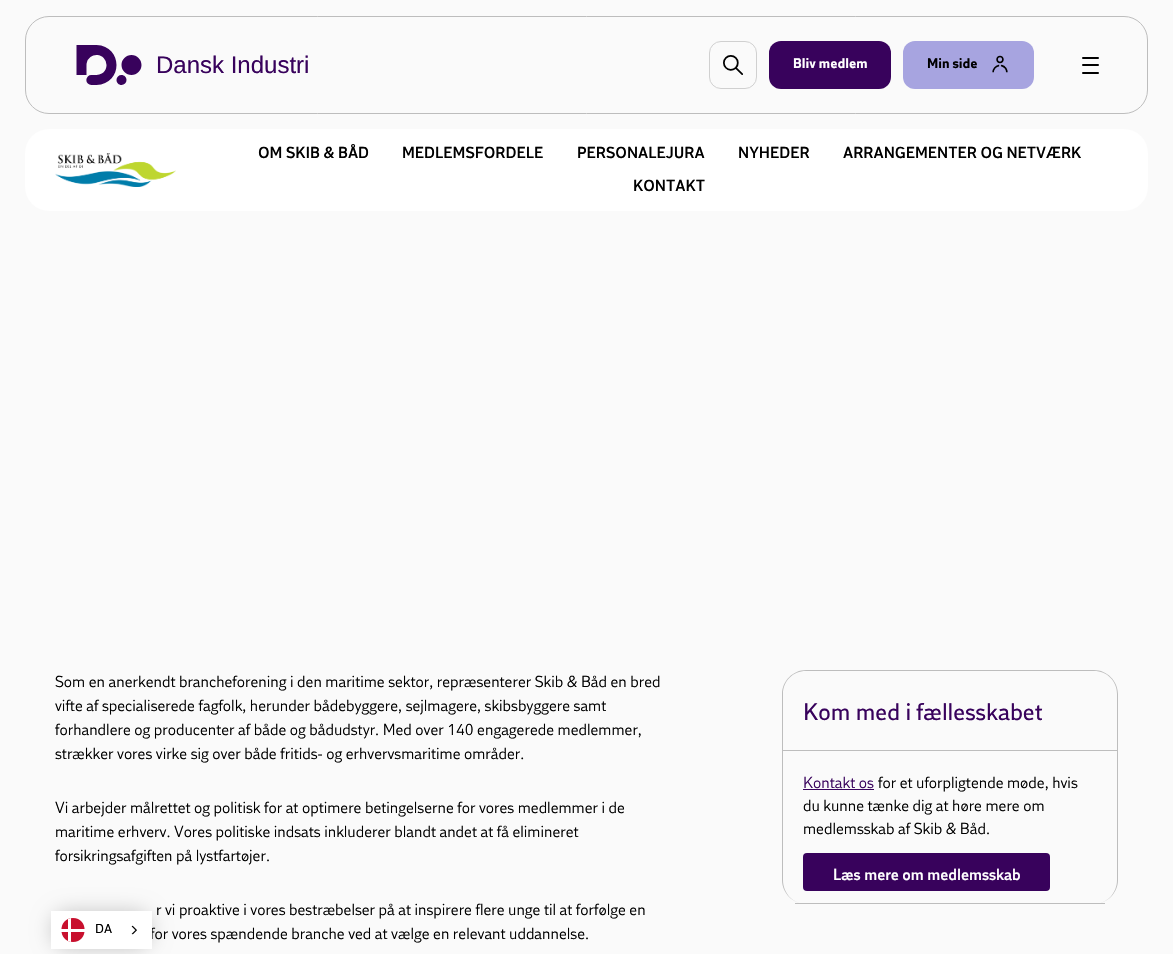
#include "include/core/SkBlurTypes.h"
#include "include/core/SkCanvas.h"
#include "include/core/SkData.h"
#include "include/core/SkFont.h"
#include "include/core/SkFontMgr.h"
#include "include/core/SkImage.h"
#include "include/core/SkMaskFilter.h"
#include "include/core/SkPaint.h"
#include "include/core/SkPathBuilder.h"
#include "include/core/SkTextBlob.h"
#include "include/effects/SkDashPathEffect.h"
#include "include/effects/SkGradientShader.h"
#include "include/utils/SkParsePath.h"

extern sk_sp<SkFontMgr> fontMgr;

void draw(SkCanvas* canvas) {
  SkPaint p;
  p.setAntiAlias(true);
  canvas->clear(SkColorSetRGB(250, 250, 250));
  p.setStyle(SkPaint::kStroke_Style);
  p.setStrokeWidth(1);
  p.setColor(SkColorSetRGB(189, 189, 189));
  canvas->drawRoundRect(SkRect::MakeLTRB(25.5f, 16.5f, 1147.5f, 113.5f), 23.5f, 23.5f, p);
  canvas->drawImageRect(SkImages::DeferredFromEncodedData(SkData::MakeFromFileName("images/1.png")), SkRect::MakeLTRB(76, 45, 142, 85), SkSamplingOptions());
  p.setColor(SkColorSetRGB(208, 208, 208));
  canvas->drawRoundRect(SkRect::MakeLTRB(709.5f, 41.5f, 756.5f, 88.5f), 11.5f, 11.5f, p);
  canvas->drawImageRect(SkImages::DeferredFromEncodedData(SkData::MakeFromFileName("images/2.png")), SkRect::MakeLTRB(723, 55, 743, 75), SkSamplingOptions());
  p.setStyle(SkPaint::kFill_Style);
  p.setColor(SkColorSetRGB(56, 2, 92));
  canvas->drawRoundRect(SkRect::MakeLTRB(769, 41, 891, 89), 12, 12, p);
  p.setColor(SkColorSetRGB(167, 164, 224));
  canvas->drawRoundRect(SkRect::MakeLTRB(903, 41, 1034, 89), 12, 12, p);
  canvas->drawImageRect(SkImages::DeferredFromEncodedData(SkData::MakeFromFileName("images/3.png")), SkRect::MakeLTRB(992, 55, 1008, 73), SkSamplingOptions());
  p.setColor(SK_ColorBLACK);
  canvas->drawRoundRect(SkRect::MakeLTRB(1082, 57, 1099, 59), 1, 1, p);
  canvas->drawRoundRect(SkRect::MakeLTRB(1082, 64, 1099, 66), 1, 1, p);
  canvas->drawRoundRect(SkRect::MakeLTRB(1082, 72, 1099, 74), 1, 1, p);
  p.setColor(SK_ColorWHITE);
  canvas->drawRoundRect(SkRect::MakeLTRB(25, 129, 1148, 211), 24, 24, p);
  canvas->drawImageRect(SkImages::DeferredFromEncodedData(SkData::MakeFromFileName("images/4.png")), SkRect::MakeLTRB(55, 153, 176, 187), SkSamplingOptions());
  p.setColor(SkColorSetRGB(189, 189, 189));
  canvas->drawPath(SkPathBuilder(SkPathFillType::kEvenOdd).moveTo(806, 670).lineTo(1094, 670).cubicTo(1107, 670, 1118, 681, 1118, 694).lineTo(1118, 880).cubicTo(1118, 893, 1107, 904, 1094, 904).lineTo(806, 904).cubicTo(793, 904, 782, 893, 782, 880).lineTo(782, 694).cubicTo(782, 681, 793, 670, 806, 670).close().moveTo(806, 671).lineTo(1094, 671).cubicTo(1107, 671, 1117, 681, 1117, 694).lineTo(1117, 880).cubicTo(1117, 893, 1107, 904, 1094, 904).lineTo(806, 904).cubicTo(793, 904, 783, 893, 783, 880).lineTo(783, 694).cubicTo(783, 681, 793, 671, 806, 671).close().detach(), p);
  canvas->drawRect(SkRect::MakeLTRB(783, 750, 1117, 751), p);
  canvas->drawRect(SkRect::MakeLTRB(795, 903, 1105, 904), p);
  p.setColor(SkColorSetRGB(56, 2, 92));
  canvas->drawRect(SkRect::MakeLTRB(803, 789, 874, 790), p);
  canvas->drawRoundRect(SkRect::MakeLTRB(803, 853, 1050, 891), 4, 4, p);
  p.setColor(SkColorSetARGB(51, 0, 0, 0));
  p.setMaskFilter(SkMaskFilter::MakeBlur(kNormal_SkBlurStyle, 10));
  canvas->drawRoundRect(SkRect::MakeLTRB(51, 911, 152, 949), 19, 19, p);
  p.setMaskFilter(nullptr);
  SkFont font1(fontMgr->matchFamilyStyle("Liberation Sans", SkFontStyle::Normal()), 24);
  font1.setSubpixel(true);
  p.setColor(SkColorSetRGB(56, 2, 92));
  canvas->drawString("Dansk Industri", 156, 73, font1, p);
  SkFont font2(fontMgr->matchFamilyStyle("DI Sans", SkFontStyle::Bold()), 14);
  font2.setSubpixel(true);
  p.setColor(SK_ColorWHITE);
  canvas->drawString("Bliv medlem", 793, 68, font2, p);
  p.setColor(SK_ColorBLACK);
  canvas->drawString("Min side", 927, 68, font2, p);
  SkFont font3(fontMgr->matchFamilyStyle("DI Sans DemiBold", SkFontStyle(600, SkFontStyle::kNormal_Width, SkFontStyle::kUpright_Slant)), 16);
  font3.setSubpixel(true);
  canvas->drawString("OM SKIB & BÅD", 258, 158, font3, p);
  canvas->drawString("MEDLEMSFORDELE", 402, 158, font3, p);
  canvas->drawString("PERSONALEJURA", 577, 158, font3, p);
  canvas->drawString("NYHEDER", 738, 158, font3, p);
  canvas->drawString("ARRANGEMENTER OG NETVÆRK", 843, 158, font3, p);
  canvas->drawString("KONTAKT", 633, 191, font3, p);
  SkFont font4(fontMgr->matchFamilyStyle("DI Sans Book", SkFontStyle::Normal()), 16);
  font4.setSubpixel(true);
  canvas->drawString("Som en anerkendt brancheforening i den maritime sektor, repræsenterer Skib & Båd en bred", 55, 687, font4, p);
  canvas->drawString("vifte af specialiserede fagfolk, herunder bådebyggere, sejlmagere, skibsbyggere samt", 55, 711, font4, p);
  canvas->drawString("forhandlere og producenter af både og bådudstyr. Med over 140 engagerede medlemmer,", 55, 735, font4, p);
  canvas->drawString("strækker vores virke sig over både fritids- og erhvervsmaritime områder.", 55, 759, font4, p);
  canvas->drawString("Vi arbejder målrettet og politisk for at optimere betingelserne for vores medlemmer i de", 55, 813, font4, p);
  canvas->drawString("maritime erhverv. Vores politiske indsats inkluderer blandt andet at få elimineret", 55, 837, font4, p);
  canvas->drawString("forsikringsafgiften på lystfartøjer.", 55, 861, font4, p);
  canvas->drawString("r vi proaktive i vores bestræbelser på at inspirere flere unge til at forfølge en", 156, 915, font4, p);
  canvas->drawString("for vores spændende branche ved at vælge en relevant uddannelse.", 150, 939, font4, p);
  SkFont font5(fontMgr->matchFamilyStyle("DI Sans", SkFontStyle::Normal()), 24);
  font5.setSubpixel(true);
  p.setColor(SkColorSetRGB(56, 2, 92));
  canvas->drawString("Kom med i fællesskabet", 803, 720, font5, p);
  canvas->drawString("Kontakt os", 803, 788, font4, p);
  p.setColor(SK_ColorBLACK);
  canvas->drawString("for et uforpligtende møde, hvis", 878, 788, font4, p);
  canvas->drawString("du kunne tænke dig at høre mere om", 803, 811, font4, p);
  canvas->drawString("medlemsskab af Skib & Båd.", 803, 834, font4, p);
  p.setColor(SK_ColorWHITE);
  canvas->drawString("Læs mere om medlemsskab", 833, 880, font3, p);
  canvas->drawRect(SkRect::MakeLTRB(51, 911, 152, 949), p);
  p.setColor(SkColorSetRGB(200, 16, 46));
  canvas->drawPath(SkPathBuilder().moveTo(73, 918).cubicTo(88.5f, 918, 88.5f, 942, 73, 942).cubicTo(57.5f, 942, 57.5f, 918, 73, 918).close().detach(), p);
  p.setColor(SK_ColorWHITE);
  canvas->drawPath(SkPathBuilder().moveTo(68, 919).lineTo(71, 918).lineTo(71, 942).lineTo(68, 941).close().detach(), p);
  canvas->drawRect(SkRect::MakeLTRB(61, 929, 85, 932), p);
  SkFont font6(fontMgr->matchFamilyStyle("DI Sans", SkFontStyle::Normal()), 13);
  font6.setSubpixel(true);
  p.setColor(SK_ColorBLACK);
  canvas->drawString("DA", 95, 933, font6, p);
  canvas->drawImageRect(SkImages::DeferredFromEncodedData(SkData::MakeFromFileName("images/5.png")), SkRect::MakeLTRB(131, 925, 137, 935), SkSamplingOptions());
}
